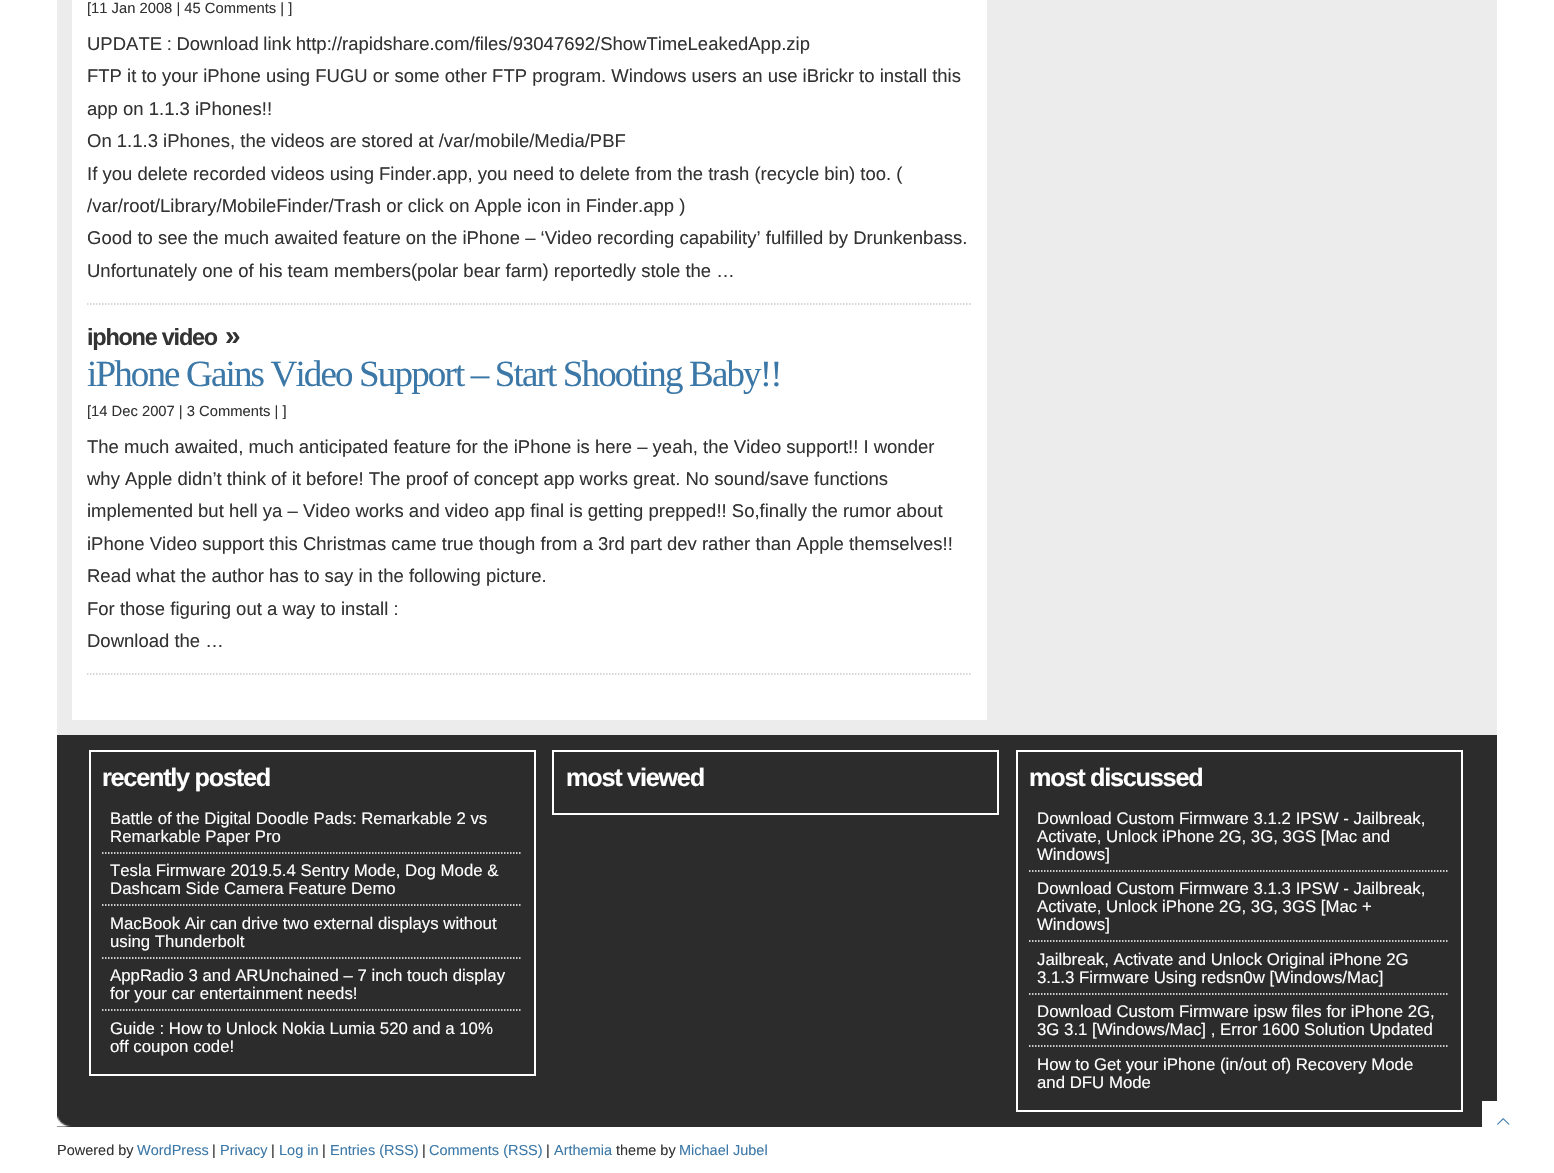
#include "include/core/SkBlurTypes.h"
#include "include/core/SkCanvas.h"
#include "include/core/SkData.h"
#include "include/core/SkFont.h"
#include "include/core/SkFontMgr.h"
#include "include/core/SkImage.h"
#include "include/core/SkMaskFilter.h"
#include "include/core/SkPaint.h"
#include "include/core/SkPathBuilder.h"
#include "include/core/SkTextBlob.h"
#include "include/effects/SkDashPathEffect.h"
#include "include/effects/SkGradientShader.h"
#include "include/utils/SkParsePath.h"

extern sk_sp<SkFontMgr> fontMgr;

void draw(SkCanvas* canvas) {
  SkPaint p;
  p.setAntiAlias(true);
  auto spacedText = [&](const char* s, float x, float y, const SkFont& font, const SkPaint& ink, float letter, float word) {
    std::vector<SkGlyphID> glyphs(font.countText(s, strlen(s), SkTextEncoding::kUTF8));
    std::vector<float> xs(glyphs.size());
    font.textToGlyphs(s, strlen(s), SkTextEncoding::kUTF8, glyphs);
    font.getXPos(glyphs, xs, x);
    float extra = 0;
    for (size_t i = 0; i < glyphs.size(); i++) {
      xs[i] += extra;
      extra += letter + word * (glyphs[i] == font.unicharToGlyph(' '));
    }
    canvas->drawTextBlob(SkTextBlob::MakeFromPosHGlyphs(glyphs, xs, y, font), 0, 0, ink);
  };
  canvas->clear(SK_ColorWHITE);
  p.setColor(SkColorSetRGB(236, 236, 236));
  canvas->drawRect(SkRect::MakeLTRB(57, 0, 1497, 735), p);
  p.setColor(SK_ColorWHITE);
  canvas->drawRect(SkRect::MakeLTRB(72, 0, 987, 720), p);
  p.setStyle(SkPaint::kStroke_Style);
  p.setStrokeWidth(1.5f);
  p.setColor(SkColorSetRGB(204, 204, 204));
  p.setPathEffect(SkDashPathEffect::Make({{1.5f, 1.5f}}, 0));
  canvas->drawPath(SkPathBuilder().moveTo(87, 304).lineTo(972, 304).detach(), p);
  p.setPathEffect(nullptr);
  p.setPathEffect(SkDashPathEffect::Make({{1.5f, 1.5f}}, 0));
  canvas->drawPath(SkPathBuilder().moveTo(87, 674).lineTo(972, 674).detach(), p);
  p.setPathEffect(nullptr);
  p.setStyle(SkPaint::kFill_Style);
  p.setColor(SkColorSetRGB(44, 44, 44));
  canvas->drawRect(SkRect::MakeLTRB(57, 735, 1497, 1127), p);
  canvas->drawImageRect(SkImages::DeferredFromEncodedData(SkData::MakeFromFileName("images/1.png")), SkRect::MakeLTRB(57, 1114, 1482, 1127), SkSamplingOptions());
  p.setStyle(SkPaint::kStroke_Style);
  p.setStrokeWidth(2);
  p.setColor(SK_ColorWHITE);
  canvas->drawRect(SkRect::MakeLTRB(90, 751, 535, 1075), p);
  p.setStrokeWidth(1.5f);
  p.setPathEffect(SkDashPathEffect::Make({{1.5f, 1.5f}}, 0));
  canvas->drawPath(SkPathBuilder().moveTo(102, 853).lineTo(522, 853).detach(), p);
  p.setPathEffect(nullptr);
  p.setPathEffect(SkDashPathEffect::Make({{1.5f, 1.5f}}, 0));
  canvas->drawPath(SkPathBuilder().moveTo(102, 905).lineTo(522, 905).detach(), p);
  p.setPathEffect(nullptr);
  p.setPathEffect(SkDashPathEffect::Make({{1.5f, 1.5f}}, 0));
  canvas->drawPath(SkPathBuilder().moveTo(102, 958).lineTo(522, 958).detach(), p);
  p.setPathEffect(nullptr);
  p.setPathEffect(SkDashPathEffect::Make({{1.5f, 1.5f}}, 0));
  canvas->drawPath(SkPathBuilder().moveTo(102, 1010).lineTo(522, 1010).detach(), p);
  p.setPathEffect(nullptr);
  p.setStrokeWidth(2);
  canvas->drawRect(SkRect::MakeLTRB(553, 751, 998, 814), p);
  canvas->drawRect(SkRect::MakeLTRB(1017, 751, 1462, 1111), p);
  p.setStrokeWidth(1.5f);
  p.setPathEffect(SkDashPathEffect::Make({{1.5f, 1.5f}}, 0));
  canvas->drawPath(SkPathBuilder().moveTo(1029, 871).lineTo(1449, 871).detach(), p);
  p.setPathEffect(nullptr);
  p.setPathEffect(SkDashPathEffect::Make({{1.5f, 1.5f}}, 0));
  canvas->drawPath(SkPathBuilder().moveTo(1029, 941).lineTo(1449, 941).detach(), p);
  p.setPathEffect(nullptr);
  p.setPathEffect(SkDashPathEffect::Make({{1.5f, 1.5f}}, 0));
  canvas->drawPath(SkPathBuilder().moveTo(1029, 994).lineTo(1449, 994).detach(), p);
  p.setPathEffect(nullptr);
  p.setPathEffect(SkDashPathEffect::Make({{1.5f, 1.5f}}, 0));
  canvas->drawPath(SkPathBuilder().moveTo(1029, 1046).lineTo(1449, 1046).detach(), p);
  p.setPathEffect(nullptr);
  p.setStyle(SkPaint::kFill_Style);
  canvas->drawRect(SkRect::MakeLTRB(1482, 1101, 1497, 1127), p);
  canvas->drawImageRect(SkImages::DeferredFromEncodedData(SkData::MakeFromFileName("images/2.png")), SkRect::MakeLTRB(1497, 1118, 1510, 1125), SkSamplingOptions());
  SkFont font1(fontMgr->matchFamilyStyle("Liberation Sans", SkFontStyle::Normal()), 14.75f);
  font1.setSubpixel(true);
  p.setColor(SkColorSetRGB(51, 51, 51));
  canvas->drawString("[11 Jan 2008 | 45 Comments | ]", 87, 13, font1, p);
  SkFont font2(fontMgr->matchFamilyStyle("Liberation Sans", SkFontStyle::Normal()), 18.5f);
  font2.setSubpixel(true);
  spacedText("UPDATE : Download link http://rapidshare.com/files/93047692/ShowTimeLeakedApp.zip", 87, 50, font2, p, 0, -0.5f);
  canvas->drawString("FTP it to your iPhone using FUGU or some other FTP program. Windows users an use iBrickr to install this", 87, 82, font2, p);
  canvas->drawString("app on 1.1.3 iPhones!!", 87, 115, font2, p);
  canvas->drawString("On 1.1.3 iPhones, the videos are stored at /var/mobile/Media/PBF", 87, 147, font2, p);
  canvas->drawString("If you delete recorded videos using Finder.app, you need to delete from the trash (recycle bin) too. (", 87, 180, font2, p);
  canvas->drawString("/var/root/Library/MobileFinder/Trash or click on Apple icon in Finder.app )", 87, 212, font2, p);
  canvas->drawString("Good to see the much awaited feature on the iPhone – ‘Video recording capability’ fulfilled by Drunkenbass.", 87, 244, font2, p);
  canvas->drawString("Unfortunately one of his team members(polar bear farm) reportedly stole the …", 87, 277, font2, p);
  SkFont font3(fontMgr->matchFamilyStyle("Liberation Sans", SkFontStyle::Bold()), 23.5f);
  font3.setSubpixel(true);
  spacedText("iphone video", 87, 345, font3, p, -1.25f, 0);
  SkFont font4(fontMgr->matchFamilyStyle("Liberation Sans", SkFontStyle::Bold()), 28);
  font4.setSubpixel(true);
  spacedText("»", 225, 345, font4, p, -1, 0);
  SkFont font5(fontMgr->matchFamilyStyle("Liberation Serif", SkFontStyle::Normal()), 37);
  font5.setSubpixel(true);
  p.setColor(SkColorSetRGB(60, 120, 167));
  spacedText("iPhone Gains Video Support – Start Shooting Baby!!", 87, 386, font5, p, -1.85f, 0);
  p.setColor(SkColorSetRGB(51, 51, 51));
  canvas->drawString("[14 Dec 2007 | 3 Comments | ]", 87, 416, font1, p);
  canvas->drawString("The much awaited, much anticipated feature for the iPhone is here – yeah, the Video support!! I wonder", 87, 453, font2, p);
  canvas->drawString("why Apple didn’t think of it before! The proof of concept app works great. No sound/save functions", 87, 485, font2, p);
  canvas->drawString("implemented but hell ya – Video works and video app final is getting prepped!! So,finally the rumor about", 87, 517, font2, p);
  canvas->drawString("iPhone Video support this Christmas came true though from a 3rd part dev rather than Apple themselves!!", 87, 550, font2, p);
  canvas->drawString("Read what the author has to say in the following picture.", 87, 582, font2, p);
  canvas->drawString("For those figuring out a way to install :", 87, 615, font2, p);
  canvas->drawString("Download the …", 87, 647, font2, p);
  SkFont font6(fontMgr->matchFamilyStyle("Liberation Sans", SkFontStyle::Bold()), 25.25f);
  font6.setSubpixel(true);
  p.setColor(SK_ColorWHITE);
  spacedText("recently posted", 102, 786, font6, p, -1.25f, 0);
  SkFont font7(fontMgr->matchFamilyStyle("Liberation Sans", SkFontStyle::Normal()), 16.8f);
  font7.setSubpixel(true);
  canvas->drawString("Battle of the Digital Doodle Pads: Remarkable 2 vs", 110, 824, font7, p);
  canvas->drawString("Remarkable Paper Pro", 110, 842, font7, p);
  canvas->drawString("Tesla Firmware 2019.5.4 Sentry Mode, Dog Mode &", 110, 876, font7, p);
  canvas->drawString("Dashcam Side Camera Feature Demo", 110, 894, font7, p);
  canvas->drawString("MacBook Air can drive two external displays without", 110, 929, font7, p);
  canvas->drawString("using Thunderbolt", 110, 947, font7, p);
  canvas->drawString("AppRadio 3 and ARUnchained – 7 inch touch display", 110, 981, font7, p);
  canvas->drawString("for your car entertainment needs!", 110, 999, font7, p);
  canvas->drawString("Guide : How to Unlock Nokia Lumia 520 and a 10%", 110, 1034, font7, p);
  canvas->drawString("off coupon code!", 110, 1052, font7, p);
  spacedText("most viewed", 566, 786, font6, p, -1.25f, 0);
  spacedText("most discussed", 1029, 786, font6, p, -1.25f, 0);
  canvas->drawString("Download Custom Firmware 3.1.2 IPSW - Jailbreak,", 1037, 824, font7, p);
  canvas->drawString("Activate, Unlock iPhone 2G, 3G, 3GS [Mac and", 1037, 842, font7, p);
  canvas->drawString("Windows]", 1037, 860, font7, p);
  canvas->drawString("Download Custom Firmware 3.1.3 IPSW - Jailbreak,", 1037, 894, font7, p);
  canvas->drawString("Activate, Unlock iPhone 2G, 3G, 3GS [Mac +", 1037, 912, font7, p);
  canvas->drawString("Windows]", 1037, 930, font7, p);
  canvas->drawString("Jailbreak, Activate and Unlock Original iPhone 2G", 1037, 965, font7, p);
  canvas->drawString("3.1.3 Firmware Using redsn0w [Windows/Mac]", 1037, 983, font7, p);
  canvas->drawString("Download Custom Firmware ipsw files for iPhone 2G,", 1037, 1017, font7, p);
  canvas->drawString("3G 3.1 [Windows/Mac] , Error 1600 Solution Updated", 1037, 1035, font7, p);
  canvas->drawString("How to Get your iPhone (in/out of) Recovery Mode", 1037, 1070, font7, p);
  canvas->drawString("and DFU Mode", 1037, 1088, font7, p);
  SkFont font8(fontMgr->matchFamilyStyle("Liberation Sans", SkFontStyle::Normal()), 14.5f);
  font8.setSubpixel(true);
  p.setColor(SkColorSetRGB(51, 51, 51));
  canvas->drawString("Powered by", 57, 1155, font8, p);
  p.setColor(SkColorSetRGB(60, 120, 167));
  canvas->drawString("WordPress", 137, 1155, font8, p);
  p.setColor(SkColorSetRGB(51, 51, 51));
  canvas->drawString("|", 212, 1155, font8, p);
  p.setColor(SkColorSetRGB(60, 120, 167));
  canvas->drawString("Privacy", 220, 1155, font8, p);
  p.setColor(SkColorSetRGB(51, 51, 51));
  canvas->drawString("|", 271, 1155, font8, p);
  p.setColor(SkColorSetRGB(60, 120, 167));
  canvas->drawString("Log in", 279, 1155, font8, p);
  p.setColor(SkColorSetRGB(51, 51, 51));
  canvas->drawString("|", 322, 1155, font8, p);
  p.setColor(SkColorSetRGB(60, 120, 167));
  canvas->drawString("Entries (RSS)", 330, 1155, font8, p);
  p.setColor(SkColorSetRGB(51, 51, 51));
  canvas->drawString("|", 422, 1155, font8, p);
  p.setColor(SkColorSetRGB(60, 120, 167));
  canvas->drawString("Comments (RSS)", 429, 1155, font8, p);
  p.setColor(SkColorSetRGB(51, 51, 51));
  canvas->drawString("|", 546, 1155, font8, p);
  p.setColor(SkColorSetRGB(60, 120, 167));
  canvas->drawString("Arthemia", 554, 1155, font8, p);
  p.setColor(SkColorSetRGB(51, 51, 51));
  canvas->drawString("theme by", 616, 1155, font8, p);
  p.setColor(SkColorSetRGB(60, 120, 167));
  canvas->drawString("Michael Jubel", 679, 1155, font8, p);
}
